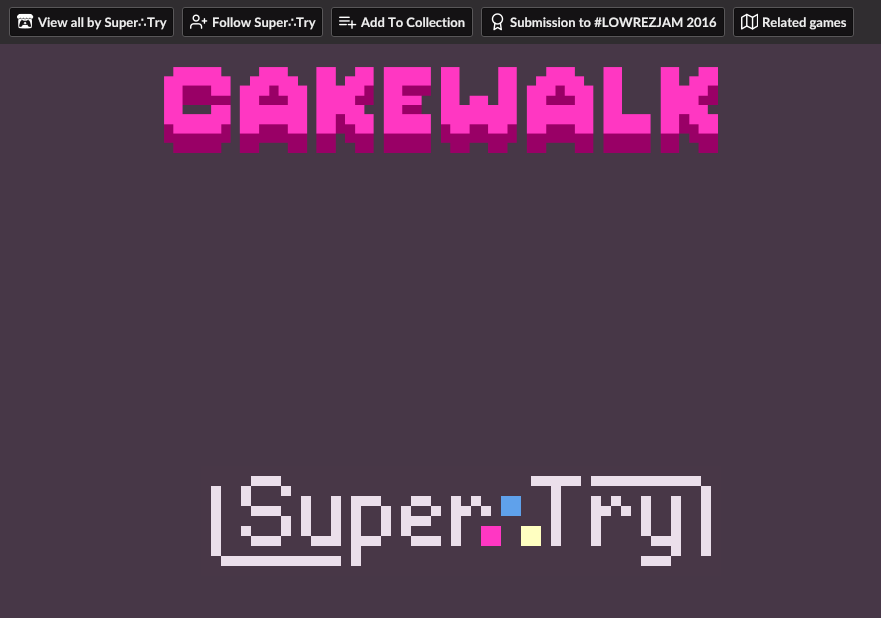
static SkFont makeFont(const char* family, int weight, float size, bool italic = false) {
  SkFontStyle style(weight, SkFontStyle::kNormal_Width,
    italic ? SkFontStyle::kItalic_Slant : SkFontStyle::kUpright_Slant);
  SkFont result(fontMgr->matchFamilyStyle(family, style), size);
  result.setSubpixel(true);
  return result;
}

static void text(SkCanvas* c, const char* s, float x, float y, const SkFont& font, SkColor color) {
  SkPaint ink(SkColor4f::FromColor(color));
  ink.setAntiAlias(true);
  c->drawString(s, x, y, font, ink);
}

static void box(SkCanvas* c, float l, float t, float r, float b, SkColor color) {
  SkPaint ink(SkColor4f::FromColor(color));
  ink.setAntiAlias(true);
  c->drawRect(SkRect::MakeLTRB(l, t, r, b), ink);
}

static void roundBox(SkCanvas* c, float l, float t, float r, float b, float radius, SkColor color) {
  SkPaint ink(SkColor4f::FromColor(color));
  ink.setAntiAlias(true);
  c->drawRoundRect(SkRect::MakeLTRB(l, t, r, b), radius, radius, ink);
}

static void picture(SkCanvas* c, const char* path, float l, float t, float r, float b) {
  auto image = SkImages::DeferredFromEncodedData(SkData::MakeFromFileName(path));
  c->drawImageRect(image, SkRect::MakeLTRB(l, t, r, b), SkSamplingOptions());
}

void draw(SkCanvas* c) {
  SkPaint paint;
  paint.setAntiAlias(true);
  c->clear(0xff473747);
  box(c, 0, 0, 881, 44, 0xff302d30);
  paint.setStyle(SkPaint::kStroke_Style);
  paint.setStrokeWidth(1);
  paint.setColor(0xff595759);
  c->drawRoundRect(SkRect::MakeLTRB(9.5f, 7.5f, 173.5f, 36.5f), 2.5f, 2.5f, paint);
  roundBox(c, 10, 8, 173, 36, 2, 0x99000000);
  paint.setColor(0x800a0a0a);
  c->drawRoundRect(SkRect::MakeLTRB(10.5f, 8.5f, 172.5f, 35.5f), 1.5f, 1.5f, paint);
  picture(c, "img_01.png", 17, 13, 34, 29);
  SkFont face1 = makeFont("Lato", 700, 13);
  text(c, "View all by Super", 38, 27, face1, 0xffeeeeee);
  SkFont face2 = makeFont("DejaVu Sans", 700, 13);
  text(c, "∴", 138, 27, face2, 0xffeeeeee);
  text(c, "Try", 147, 27, face1, 0xffeeeeee);
  paint.setColor(0xff595759);
  c->drawRoundRect(SkRect::MakeLTRB(182.5f, 7.5f, 322.5f, 36.5f), 2.5f, 2.5f, paint);
  roundBox(c, 183, 8, 322, 36, 2, 0x99000000);
  paint.setColor(0x800a0a0a);
  c->drawRoundRect(SkRect::MakeLTRB(183.5f, 8.5f, 321.5f, 35.5f), 1.5f, 1.5f, paint);
  picture(c, "img_02.png", 190, 14, 208, 29);
  text(c, "Follow Super", 212, 27, face1, 0xffeeeeee);
  text(c, "∴", 288, 27, face2, 0xffeeeeee);
  text(c, "Try", 296, 27, face1, 0xffeeeeee);
  paint.setColor(0xff595759);
  c->drawRoundRect(SkRect::MakeLTRB(331.5f, 7.5f, 472.5f, 36.5f), 2.5f, 2.5f, paint);
  roundBox(c, 332, 8, 472, 36, 2, 0x99000000);
  paint.setColor(0x800a0a0a);
  c->drawRoundRect(SkRect::MakeLTRB(332.5f, 8.5f, 471.5f, 35.5f), 1.5f, 1.5f, paint);
  picture(c, "img_03.png", 339, 16, 357, 29);
  text(c, "Add To Collection", 361, 27, face1, 0xffeeeeee);
  paint.setColor(0xff595759);
  c->drawRoundRect(SkRect::MakeLTRB(481.5f, 7.5f, 724.5f, 36.5f), 2.5f, 2.5f, paint);
  roundBox(c, 482, 8, 724, 36, 2, 0x99000000);
  paint.setColor(0x800a0a0a);
  c->drawRoundRect(SkRect::MakeLTRB(482.5f, 8.5f, 723.5f, 35.5f), 1.5f, 1.5f, paint);
  picture(c, "img_04.png", 491, 13, 504, 31);
  text(c, "Submission to #LOWREZJAM 2016", 510, 27, face1, 0xffeeeeee);
  paint.setColor(0xff595759);
  c->drawRoundRect(SkRect::MakeLTRB(733.5f, 7.5f, 853.5f, 36.5f), 2.5f, 2.5f, paint);
  roundBox(c, 734, 8, 853, 36, 2, 0x99000000);
  paint.setColor(0x800a0a0a);
  c->drawRoundRect(SkRect::MakeLTRB(734.5f, 8.5f, 852.5f, 35.5f), 1.5f, 1.5f, paint);
  picture(c, "img_05.png", 741, 13, 758, 30);
  text(c, "Related games", 762, 27, face1, 0xffeeeeee);
  picture(c, "img_06.png", 164, 67, 718, 153);
  picture(c, "img_07.png", 141, 196, 741, 618);
}
